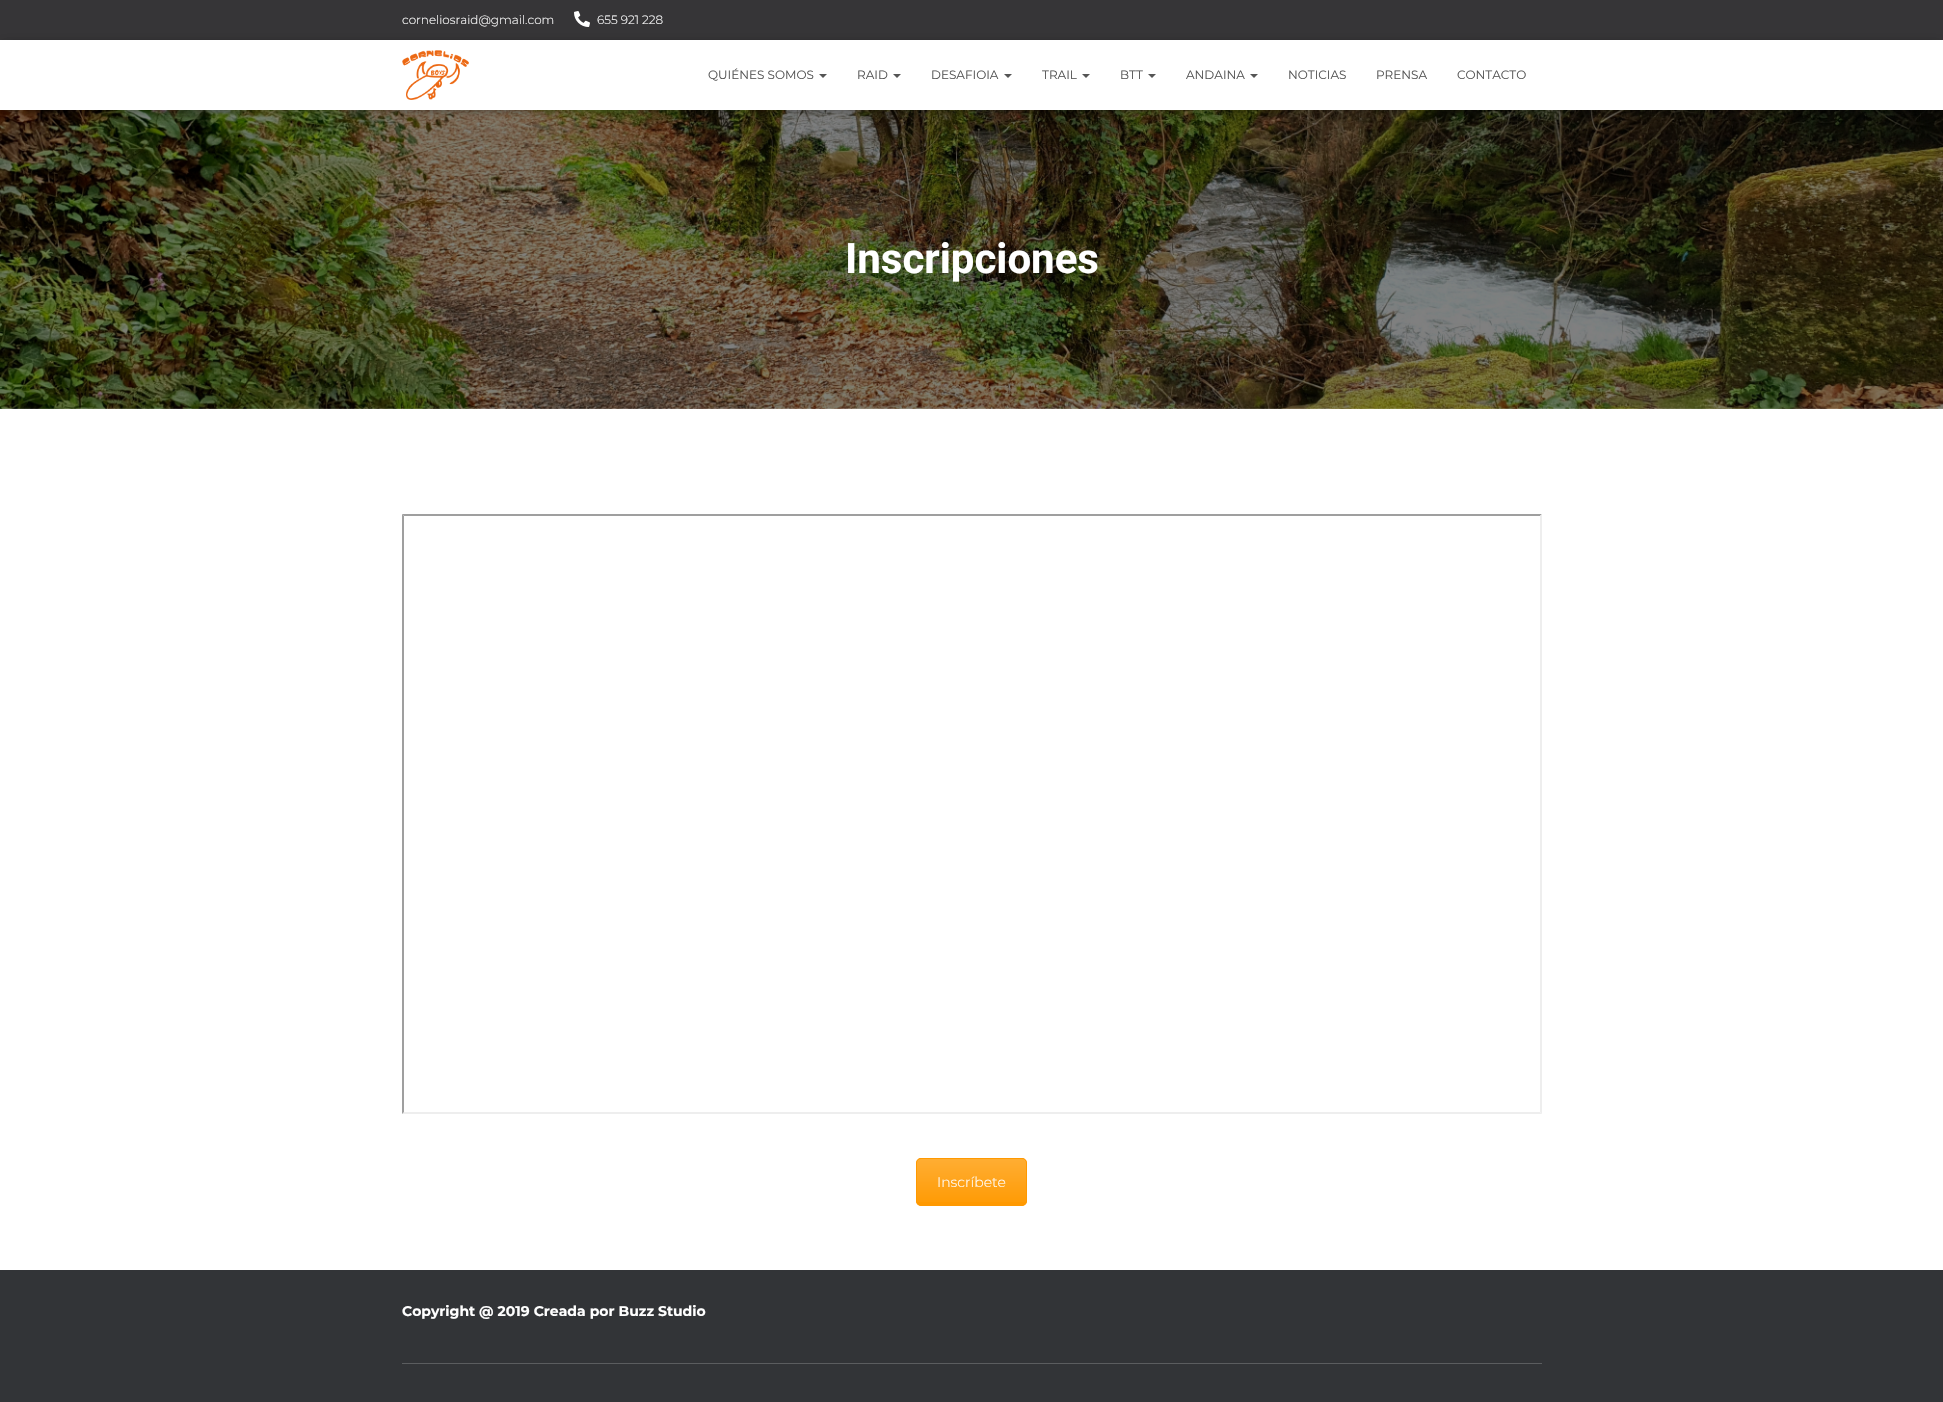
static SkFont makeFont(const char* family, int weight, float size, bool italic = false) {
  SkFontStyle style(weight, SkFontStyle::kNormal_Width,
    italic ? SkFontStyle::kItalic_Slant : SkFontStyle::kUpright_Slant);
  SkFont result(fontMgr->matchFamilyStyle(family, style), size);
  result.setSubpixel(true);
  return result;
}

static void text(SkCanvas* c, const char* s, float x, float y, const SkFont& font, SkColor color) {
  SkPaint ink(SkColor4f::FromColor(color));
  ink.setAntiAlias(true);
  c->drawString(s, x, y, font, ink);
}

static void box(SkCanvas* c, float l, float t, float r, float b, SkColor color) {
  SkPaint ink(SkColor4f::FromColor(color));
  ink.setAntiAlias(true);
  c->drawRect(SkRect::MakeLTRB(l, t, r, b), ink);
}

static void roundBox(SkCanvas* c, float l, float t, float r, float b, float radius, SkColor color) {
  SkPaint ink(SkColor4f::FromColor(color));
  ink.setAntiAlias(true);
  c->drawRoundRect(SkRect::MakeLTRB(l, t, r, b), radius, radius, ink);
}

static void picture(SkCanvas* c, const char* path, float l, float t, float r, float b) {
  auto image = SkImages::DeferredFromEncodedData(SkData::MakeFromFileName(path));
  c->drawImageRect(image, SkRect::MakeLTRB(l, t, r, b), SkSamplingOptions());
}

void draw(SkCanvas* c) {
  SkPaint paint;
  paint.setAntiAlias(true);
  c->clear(0xffffffff);
  box(c, 0, 0, 1943, 40, 0xff363537);
  SkFont face1 = makeFont("Montserrat", 300, 12);
  text(c, "corneliosraid@gmail.com", 402, 24, face1, 0xffffffff);
  picture(c, "img_01.png", 574, 11, 590, 27);
  text(c, "655 921 228", 597, 24, face1, 0xffffffff);
  picture(c, "img_03.png", 0, 110, 1943, 409);
  paint.setColor(0x1a000000);
  paint.setMaskFilter(SkMaskFilter::MakeBlur(kNormal_SkBlurStyle, 2.5f));
  c->drawRect(SkRect::MakeLTRB(2, 46, 1941, 112), paint);
  paint.setMaskFilter(nullptr);
  paint.setColor(0x1f000000);
  paint.setMaskFilter(SkMaskFilter::MakeBlur(kNormal_SkBlurStyle, 5));
  c->drawRect(SkRect::MakeLTRB(0, 41, 1943, 111), paint);
  paint.setMaskFilter(nullptr);
  paint.setColor(0x6b000000);
  paint.setMaskFilter(SkMaskFilter::MakeBlur(kNormal_SkBlurStyle, 5));
  c->drawRect(SkRect::MakeLTRB(6, 47, 1937, 105), paint);
  paint.setMaskFilter(nullptr);
  box(c, 0, 40, 1943, 110, 0xffffffff);
  picture(c, "img_02.png", 402, 50, 469, 100);
  SkFont face2 = makeFont("Montserrat", 400, 12);
  text(c, "QUIÉNES SOMOS", 708, 79, face2, 0xff555555);
  paint.setColor(0xff555555);
  c->drawPath(SkPathBuilder().moveTo(819, 74).lineTo(827, 74).lineTo(823, 78).close().detach(), paint);
  text(c, "RAID", 857, 79, face2, 0xff555555);
  c->drawPath(SkPathBuilder().moveTo(893, 74).lineTo(901, 74).lineTo(897, 78).close().detach(), paint);
  text(c, "DESAFIOIA", 931, 79, face2, 0xff555555);
  c->drawPath(SkPathBuilder().moveTo(1004, 74).lineTo(1012, 74).lineTo(1008, 78).close().detach(), paint);
  text(c, "TRAIL", 1042, 79, face2, 0xff555555);
  c->drawPath(SkPathBuilder().moveTo(1082, 74).lineTo(1090, 74).lineTo(1086, 78).close().detach(), paint);
  text(c, "BTT", 1120, 79, face2, 0xff555555);
  c->drawPath(SkPathBuilder().moveTo(1148, 74).lineTo(1156, 74).lineTo(1152, 78).close().detach(), paint);
  text(c, "ANDAINA", 1186, 79, face2, 0xff555555);
  c->drawPath(SkPathBuilder().moveTo(1250, 74).lineTo(1258, 74).lineTo(1254, 78).close().detach(), paint);
  text(c, "NOTICIAS", 1288, 79, face2, 0xff555555);
  text(c, "PRENSA", 1376, 79, face2, 0xff555555);
  text(c, "CONTACTO", 1457, 79, face2, 0xff555555);
  SkFont face3 = makeFont("Roboto", 700, 42);
  text(c, "Inscripciones", 845, 273, face3, 0xffffffff);
  paint.setColor(0xff9f9f9f);
  c->drawPath(SkPathBuilder().moveTo(402, 514).lineTo(1542, 514).lineTo(1540, 516).lineTo(404, 516).close().detach(), paint);
  paint.setColor(0xffeeeeee);
  c->drawPath(SkPathBuilder().moveTo(1542, 514).lineTo(1542, 1114).lineTo(1540, 1112).lineTo(1540, 516).close().detach(), paint);
  c->drawPath(SkPathBuilder().moveTo(1542, 1114).lineTo(402, 1114).lineTo(404, 1112).lineTo(1540, 1112).close().detach(), paint);
  paint.setColor(0xff9f9f9f);
  c->drawPath(SkPathBuilder().moveTo(402, 1114).lineTo(402, 514).lineTo(404, 516).lineTo(404, 1112).close().detach(), paint);
  roundBox(c, 916, 1158, 1027, 1206, 5, 0xffff9900);
  c->save();
  c->clipPath(SkPathBuilder().moveTo(921, 1158).lineTo(1022, 1158).cubicTo(1025, 1158, 1027, 1160, 1027, 1163).lineTo(1027, 1201).cubicTo(1027, 1204, 1025, 1206, 1022, 1206).lineTo(921, 1206).cubicTo(918, 1206, 916, 1204, 916, 1201).lineTo(916, 1163).cubicTo(916, 1160, 918, 1158, 921, 1158).close().detach(), true);
  {
    const SkColor colors[] = {0x33ffffff, 0x03ffffff};
    const float stops[] = {0, 1};
    const SkPoint ends[] = {{972, 1159}, {972, 1205}};
    paint.setShader(SkGradientShader::MakeLinear(ends, colors, stops, 2, SkTileMode::kClamp));
    paint.setAlpha(255);
  }
  c->drawRect(SkRect::MakeLTRB(916, 1159, 1027, 1202), paint);
  c->restore();
  paint.setStyle(SkPaint::kStroke_Style);
  paint.setStrokeWidth(1);
  paint.setShader(nullptr);
  paint.setColor(0xffff9900);
  c->drawRoundRect(SkRect::MakeLTRB(916.5f, 1158.5f, 1026.5f, 1205.5f), 4.5f, 4.5f, paint);
  SkFont face4 = makeFont("Montserrat", 300, 14);
  text(c, "Inscríbete", 937, 1187, face4, 0xffffffff);
  box(c, 0, 1270, 1943, 1402, 0xff323437);
  SkFont face5 = makeFont("Montserrat", 700, 14);
  text(c, "Copyright @ 2019 Creada por Buzz Studio", 402, 1316, face5, 0xffffffff);
  box(c, 402, 1363, 1542, 1364, 0xff5b5d5f);
}
